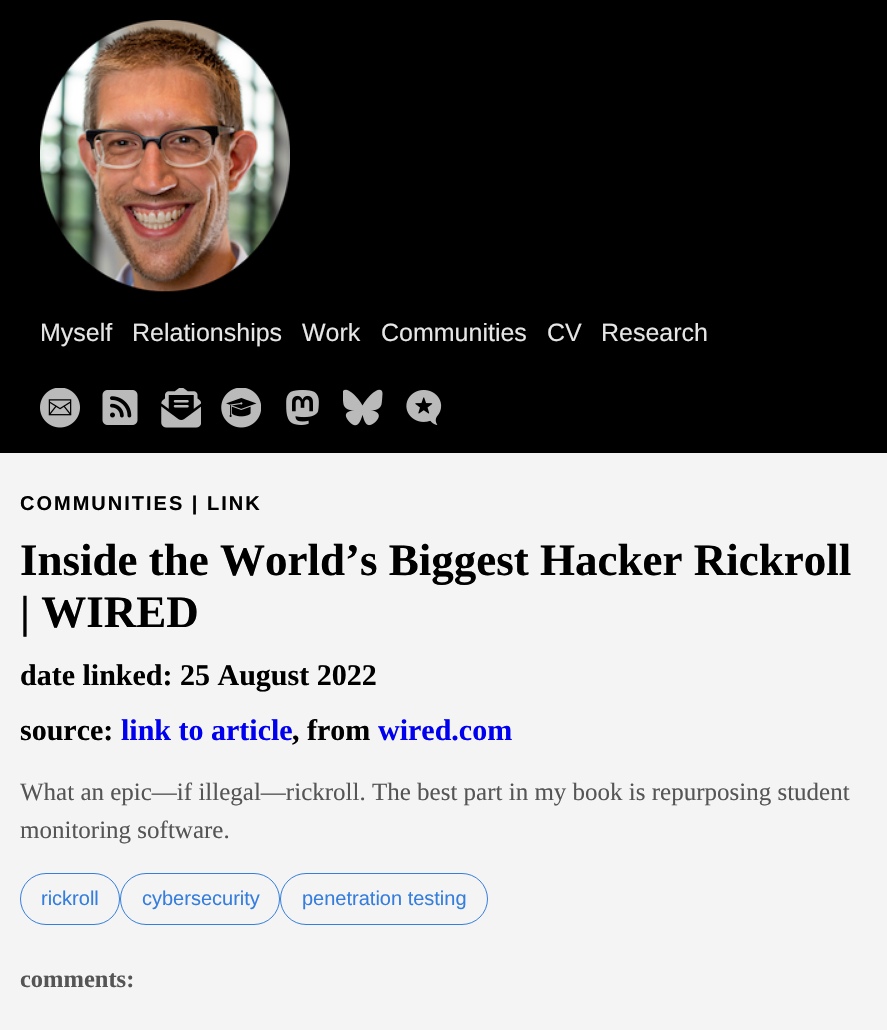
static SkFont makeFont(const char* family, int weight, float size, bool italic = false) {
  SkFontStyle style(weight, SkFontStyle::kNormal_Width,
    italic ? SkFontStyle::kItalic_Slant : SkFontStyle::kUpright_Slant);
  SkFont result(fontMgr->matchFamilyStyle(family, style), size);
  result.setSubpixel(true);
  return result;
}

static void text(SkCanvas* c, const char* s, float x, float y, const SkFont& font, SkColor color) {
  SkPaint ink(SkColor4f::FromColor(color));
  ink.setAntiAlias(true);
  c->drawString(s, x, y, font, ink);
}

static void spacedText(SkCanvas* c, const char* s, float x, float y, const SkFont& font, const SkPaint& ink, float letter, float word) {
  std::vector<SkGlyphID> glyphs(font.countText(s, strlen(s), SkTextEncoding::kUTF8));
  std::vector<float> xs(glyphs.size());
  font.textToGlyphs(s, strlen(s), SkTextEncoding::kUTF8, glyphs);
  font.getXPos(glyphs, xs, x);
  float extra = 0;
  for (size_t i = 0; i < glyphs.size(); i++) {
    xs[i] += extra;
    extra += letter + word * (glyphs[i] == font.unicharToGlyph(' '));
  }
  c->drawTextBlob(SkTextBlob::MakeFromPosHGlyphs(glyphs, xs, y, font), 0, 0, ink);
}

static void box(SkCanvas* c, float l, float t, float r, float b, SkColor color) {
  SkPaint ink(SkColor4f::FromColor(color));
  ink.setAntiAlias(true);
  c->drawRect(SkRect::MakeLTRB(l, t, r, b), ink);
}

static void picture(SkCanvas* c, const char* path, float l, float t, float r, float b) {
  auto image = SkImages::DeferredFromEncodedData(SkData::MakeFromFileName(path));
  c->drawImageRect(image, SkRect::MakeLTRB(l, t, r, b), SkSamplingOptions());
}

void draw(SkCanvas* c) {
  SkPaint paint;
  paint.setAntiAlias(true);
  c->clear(0xfff4f4f4);
  box(c, 0, 0, 887, 453, 0xff000000);
  picture(c, "img_01.png", 40, 20, 290, 292);
  SkFont face1 = makeFont("Liberation Sans", 400, 25);
  text(c, "Myself", 40, 341, face1, 0xffe6e6e6);
  text(c, "Relationships", 132, 341, face1, 0xffe6e6e6);
  text(c, "Work", 302, 341, face1, 0xffe6e6e6);
  text(c, "Communities", 381, 341, face1, 0xffe6e6e6);
  text(c, "CV", 547, 341, face1, 0xffe6e6e6);
  text(c, "Research", 601, 341, face1, 0xffe6e6e6);
  picture(c, "img_02.png", 40, 388, 80, 428);
  picture(c, "img_03.png", 102, 390, 138, 425);
  picture(c, "img_04.png", 161, 388, 201, 428);
  picture(c, "img_05.png", 221, 388, 261, 428);
  picture(c, "img_06.png", 286, 390, 319, 425);
  picture(c, "img_07.png", 343, 389, 383, 426);
  picture(c, "img_08.png", 406, 390, 442, 425);
  SkFont face2 = makeFont("Liberation Sans", 700, 20);
  paint.setColor(0xff000000);
  spacedText(c, "COMMUNITIES | LINK", 20, 510, face2, paint, 2, 0);
  SkFont face3 = makeFont("Liberation Serif", 700, 45);
  text(c, "Inside the World’s Biggest Hacker Rickroll", 20, 575, face3, 0xff000000);
  text(c, "| WIRED", 20, 627, face3, 0xff000000);
  SkFont face4 = makeFont("Liberation Serif", 700, 30);
  text(c, "date linked: 25 August 2022", 20, 685, face4, 0xff000000);
  text(c, "source:", 20, 740, face4, 0xff000000);
  text(c, "link to article", 121, 740, face4, 0xff0000ee);
  text(c, ", from", 292, 740, face4, 0xff000000);
  text(c, "wired.com", 378, 740, face4, 0xff0000ee);
  SkFont face5 = makeFont("Liberation Serif", 400, 25);
  text(c, "What an epic—if illegal—rickroll. The best part in my book is repurposing student", 20, 800, face5, 0xff555555);
  text(c, "monitoring software.", 20, 838, face5, 0xff555555);
  paint.setStyle(SkPaint::kStroke_Style);
  paint.setStrokeWidth(1);
  paint.setColor(0xff357edd);
  c->drawRoundRect(SkRect::MakeLTRB(20.5f, 873.5f, 119.5f, 924.5f), 25.5f, 25.5f, paint);
  SkFont face6 = makeFont("Liberation Sans", 400, 20);
  text(c, "rickroll", 41, 905, face6, 0xff357edd);
  c->drawRoundRect(SkRect::MakeLTRB(120.5f, 873.5f, 279.5f, 924.5f), 25.5f, 25.5f, paint);
  text(c, "cybersecurity", 142, 905, face6, 0xff357edd);
  c->drawRoundRect(SkRect::MakeLTRB(280.5f, 873.5f, 487.5f, 924.5f), 25.5f, 25.5f, paint);
  text(c, "penetration testing", 302, 905, face6, 0xff357edd);
  SkFont face7 = makeFont("Liberation Serif", 700, 24.5f);
  text(c, "comments:", 20, 987, face7, 0xff555555);
}
